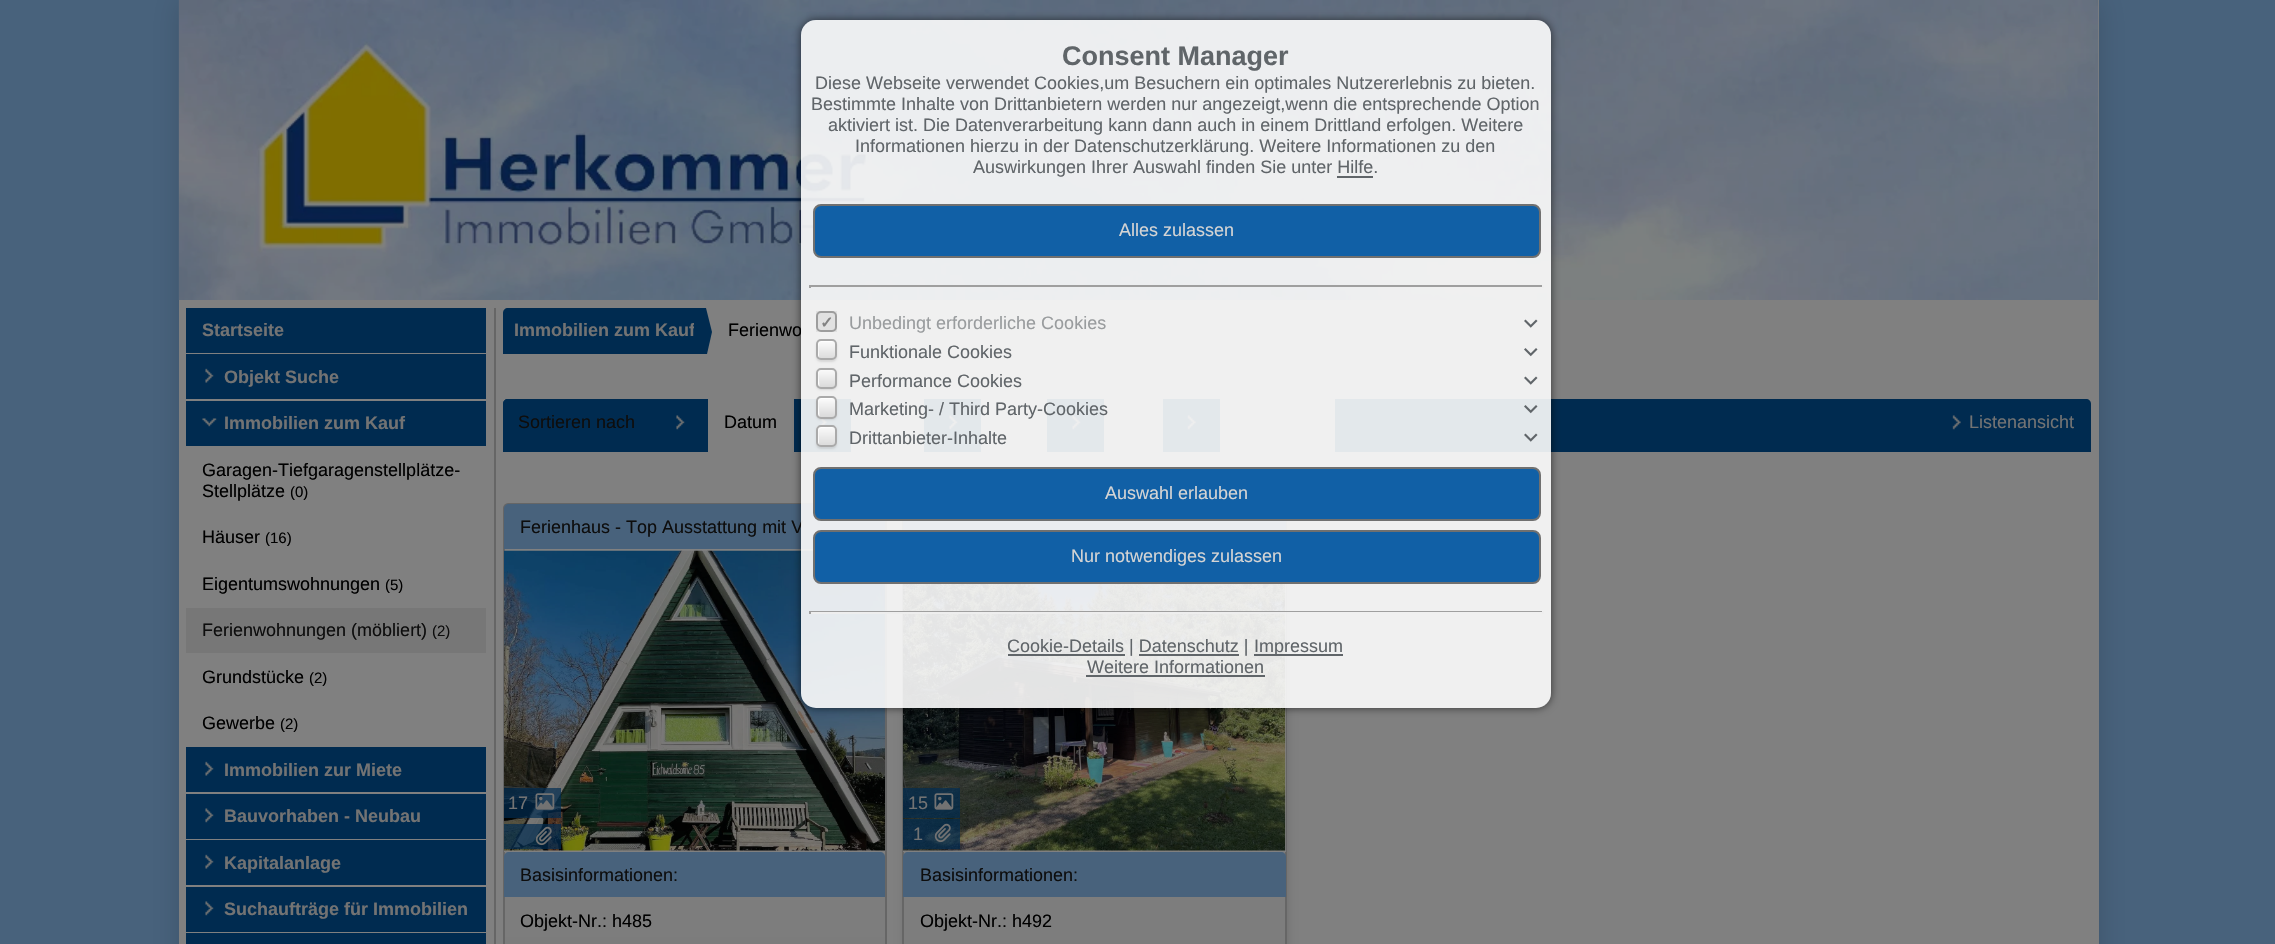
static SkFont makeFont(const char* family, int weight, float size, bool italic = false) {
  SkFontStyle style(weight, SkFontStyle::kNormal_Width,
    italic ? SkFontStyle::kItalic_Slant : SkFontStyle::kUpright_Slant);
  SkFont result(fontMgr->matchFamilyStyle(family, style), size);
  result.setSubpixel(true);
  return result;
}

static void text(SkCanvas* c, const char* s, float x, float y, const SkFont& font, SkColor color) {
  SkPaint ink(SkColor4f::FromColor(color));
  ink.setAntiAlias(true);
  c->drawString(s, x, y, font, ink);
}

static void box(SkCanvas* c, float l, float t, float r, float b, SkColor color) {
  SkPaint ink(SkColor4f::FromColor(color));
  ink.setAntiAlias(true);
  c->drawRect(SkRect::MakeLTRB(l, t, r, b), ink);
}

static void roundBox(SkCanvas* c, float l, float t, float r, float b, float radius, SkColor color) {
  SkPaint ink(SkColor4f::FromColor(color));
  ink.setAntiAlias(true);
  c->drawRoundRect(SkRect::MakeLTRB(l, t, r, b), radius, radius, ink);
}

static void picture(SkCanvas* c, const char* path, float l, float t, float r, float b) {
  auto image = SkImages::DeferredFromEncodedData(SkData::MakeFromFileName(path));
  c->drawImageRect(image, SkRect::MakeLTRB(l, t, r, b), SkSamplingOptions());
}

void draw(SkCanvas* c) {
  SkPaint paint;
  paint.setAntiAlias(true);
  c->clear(0xff48627c);
  paint.setColor(0x24000000);
  paint.setMaskFilter(SkMaskFilter::MakeBlur(kNormal_SkBlurStyle, 13.5f));
  c->drawRect(SkRect::MakeLTRB(179, 0, 2099, 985), paint);
  paint.setMaskFilter(nullptr);
  box(c, 179, 0, 2099, 944, 0xff808080);
  picture(c, "img_05.png", 178, 0, 2099, 300);
  paint.setColor(0xff002b50);
  c->drawPath(SkPathBuilder().moveTo(508, 399).lineTo(2086, 399).cubicTo(2089, 399, 2091, 401, 2091, 404).lineTo(2091, 452).lineTo(503, 452).lineTo(503, 404).cubicTo(503, 401, 505, 399, 508, 399).close().detach(), paint);
  box(c, 708, 399, 794, 452, 0xff808080);
  picture(c, "img_09.png", 818, 418, 827, 426);
  box(c, 851, 399, 924, 452, 0xff808080);
  picture(c, "img_08.png", 949, 415, 958, 430);
  box(c, 981, 399, 1047, 452, 0xff808080);
  picture(c, "img_10.png", 1072, 415, 1081, 430);
  box(c, 1104, 399, 1163, 452, 0xff808080);
  picture(c, "img_11.png", 1187, 415, 1196, 430);
  box(c, 1220, 399, 1335, 452, 0xff808080);
  {
    const SkColor colors[] = {0x006e6e6e, 0x406e6e6e};
    const float stops[] = {0, 1};
    const SkPoint ends[] = {{695, 504}, {695, 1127}};
    paint.setShader(SkGradientShader::MakeLinear(ends, colors, stops, 2, SkTileMode::kClamp));
    paint.setAlpha(255);
  }
  c->drawRect(SkRect::MakeLTRB(505, 852, 885, 944), paint);
  paint.setStyle(SkPaint::kStroke_Style);
  paint.setStrokeWidth(2);
  paint.setShader(nullptr);
  paint.setColor(0xff666666);
  c->drawPath(SkPathBuilder().moveTo(508, 504).lineTo(882, 504).cubicTo(884, 504, 886, 506, 886, 508).lineTo(886, 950).lineTo(504, 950).lineTo(504, 508).cubicTo(504, 506, 506, 504, 508, 504).close().detach(), paint);
  paint.setStyle(SkPaint::kFill_Style);
  paint.setColor(0xff48627c);
  c->drawPath(SkPathBuilder().moveTo(509, 504).lineTo(880, 504).cubicTo(883, 504, 885, 506, 885, 509).lineTo(885, 549).lineTo(504, 549).lineTo(504, 509).cubicTo(504, 506, 506, 504, 509, 504).close().detach(), paint);
  box(c, 504, 850, 505, 852, 0xff808080);
  picture(c, "img_12.png", 504, 550, 885, 851);
  paint.setColor(0x1a000000);
  paint.setMaskFilter(SkMaskFilter::MakeBlur(kNormal_SkBlurStyle, 4));
  c->drawRoundRect(SkRect::MakeLTRB(903, 504, 1289, 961), 5, 5, paint);
  paint.setMaskFilter(nullptr);
  {
    const SkColor colors[] = {0xff808080, 0xff7b7b7b};
    const float stops[] = {0, 1};
    const SkPoint ends[] = {{1094, 504}, {1094, 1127}};
    paint.setShader(SkGradientShader::MakeLinear(ends, colors, stops, 2, SkTileMode::kClamp));
    paint.setAlpha(255);
  }
  c->drawRect(SkRect::MakeLTRB(904, 852, 1285, 944), paint);
  paint.setStyle(SkPaint::kStroke_Style);
  paint.setShader(nullptr);
  paint.setColor(0xff666666);
  c->drawRect(SkRect::MakeLTRB(903, 504, 1286, 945), paint);
  box(c, 903, 521, 1286, 530, 0xff48627c);
  box(c, 903, 584, 1286, 852, 0xff808080);
  picture(c, "img_15.png", 903, 584, 1286, 851);
  c->save();
  c->clipPath(SkPathBuilder(SkPathFillType::kEvenOdd).moveTo(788, 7).lineTo(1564, 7).lineTo(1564, 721).lineTo(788, 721).close().moveTo(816, 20).lineTo(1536, 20).cubicTo(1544.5f, 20, 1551, 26.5f, 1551, 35).lineTo(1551, 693).cubicTo(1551, 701.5f, 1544.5f, 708, 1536, 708).lineTo(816, 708).cubicTo(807.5f, 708, 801, 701.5f, 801, 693).lineTo(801, 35).cubicTo(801, 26.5f, 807.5f, 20, 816, 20).close().detach(), true);
  paint.setStyle(SkPaint::kFill_Style);
  paint.setColor(0x99000000);
  paint.setMaskFilter(SkMaskFilter::MakeBlur(kNormal_SkBlurStyle, 4));
  c->drawRoundRect(SkRect::MakeLTRB(801, 20, 1551, 708), 15, 15, paint);
  paint.setMaskFilter(nullptr);
  c->restore();
  SkFont face1 = makeFont("Liberation Sans", 400, 18);
  text(c, "Ferienwo", 728, 336, face1, 0xff000000);
  text(c, "Ferienhaus - Top Ausstattung mit V", 520, 533, face1, 0xff0d0d0d);
  roundBox(c, 801, 20, 1551, 708, 15, 0xe6fcfcfc);
  SkFont face2 = makeFont("Liberation Sans", 700, 27);
  text(c, "Consent Manager", 1062, 65, face2, 0xff606569);
  text(c, "Diese Webseite verwendet Cookies,um Besuchern ein optimales Nutzererlebnis zu bieten.", 815, 89, face1, 0xff606569);
  text(c, "Bestimmte Inhalte von Drittanbietern werden nur angezeigt,wenn die entsprechende Option", 811, 110, face1, 0xff606569);
  text(c, "aktiviert ist. Die Datenverarbeitung kann dann auch in einem Drittland erfolgen. Weitere", 828, 131, face1, 0xff606569);
  text(c, "Informationen hierzu in der Datenschutzerklärung. Weitere Informationen zu den", 855, 152, face1, 0xff606569);
  text(c, "Auswirkungen Ihrer Auswahl finden Sie unter Hilfe.", 973, 173, face1, 0xff606569);
  box(c, 1337, 176, 1373, 178, 0xff606569);
  paint.setColor(0xff1160a6);
  c->drawRoundRect(SkRect::MakeLTRB(814, 205, 1540, 257), 7, 7, paint);
  paint.setStyle(SkPaint::kStroke_Style);
  paint.setColor(0xff707070);
  c->drawRoundRect(SkRect::MakeLTRB(814, 205, 1540, 257), 7, 7, paint);
  text(c, "Alles zulassen", 1119, 236, face1, 0xffd4d4d4);
  box(c, 809, 285, 1544, 287, 0xff9f9f9f);
  box(c, 1542, 285, 1544, 288, 0xffeeeeee);
  box(c, 809, 285, 811, 288, 0xff9f9f9f);
  box(c, 816, 311, 837, 332, 0x0f000000);
  paint.setColor(0x4d000000);
  c->drawRoundRect(SkRect::MakeLTRB(817, 312, 836, 331), 4, 4, paint);
  SkFont face3 = makeFont("DejaVu Sans", 700, 16);
  text(c, "✓", 820, 328, face3, 0xff828282);
  text(c, "Unbedingt erforderliche Cookies", 849, 329, face1, 0xff999c9e);
  picture(c, "img_01.png", 1524, 319, 1538, 328);
  paint.setStyle(SkPaint::kFill_Style);
  paint.setColor(0x1a000000);
  paint.setMaskFilter(SkMaskFilter::MakeBlur(kNormal_SkBlurStyle, 1));
  c->drawRoundRect(SkRect::MakeLTRB(816, 341, 837, 362), 5, 5, paint);
  paint.setMaskFilter(nullptr);
  c->save();
  c->clipPath(SkPathBuilder().moveTo(821, 339).lineTo(832, 339).cubicTo(835, 339, 837, 341, 837, 344).lineTo(837, 355).cubicTo(837, 358, 835, 360, 832, 360).lineTo(821, 360).cubicTo(818, 360, 816, 358, 816, 355).lineTo(816, 344).cubicTo(816, 341, 818, 339, 821, 339).close().detach(), true);
  {
    const SkColor colors[] = {0xfffcfcfc, 0xffdadada};
    const float stops[] = {0, 1};
    const SkPoint ends[] = {{827, 341}, {827, 359}};
    paint.setShader(SkGradientShader::MakeLinear(ends, colors, stops, 2, SkTileMode::kClamp));
    paint.setAlpha(255);
  }
  c->drawRect(SkRect::MakeLTRB(816, 341, 837, 359), paint);
  c->restore();
  paint.setShader(nullptr);
  paint.setColor(0xffffffff);
  c->drawPath(SkPathBuilder().moveTo(822, 342).cubicTo(825, 342, 833, 341.5f, 835.5f, 342.5f).cubicTo(835, 341.5f, 834, 341, 833, 341).lineTo(821, 341).cubicTo(819.5f, 341, 818, 342.5f, 818, 344).lineTo(818, 356).cubicTo(818, 357, 818.5f, 358, 819.5f, 358.5f).cubicTo(819, 357.5f, 818.5f, 348, 818.5f, 346.5f).lineTo(819, 344).cubicTo(819.5f, 342.5f, 820.5f, 342, 822, 342).close().detach(), paint);
  paint.setStyle(SkPaint::kStroke_Style);
  paint.setColor(0xffaaaaaa);
  c->drawRoundRect(SkRect::MakeLTRB(817, 340, 836, 359), 4, 4, paint);
  text(c, "Funktionale Cookies", 849, 358, face1, 0xff606569);
  picture(c, "img_02.png", 1524, 348, 1538, 357);
  paint.setStyle(SkPaint::kFill_Style);
  paint.setColor(0x1a000000);
  paint.setMaskFilter(SkMaskFilter::MakeBlur(kNormal_SkBlurStyle, 1));
  c->drawRoundRect(SkRect::MakeLTRB(816, 369, 837, 390), 5, 5, paint);
  paint.setMaskFilter(nullptr);
  c->save();
  c->clipPath(SkPathBuilder().moveTo(821, 368).lineTo(832, 368).cubicTo(835, 368, 837, 370, 837, 373).lineTo(837, 384).cubicTo(837, 387, 835, 389, 832, 389).lineTo(821, 389).cubicTo(818, 389, 816, 387, 816, 384).lineTo(816, 373).cubicTo(816, 370, 818, 368, 821, 368).close().detach(), true);
  {
    const SkColor colors[] = {0xfffcfcfc, 0xffdadada};
    const float stops[] = {0, 1};
    const SkPoint ends[] = {{827, 369}, {827, 387}};
    paint.setShader(SkGradientShader::MakeLinear(ends, colors, stops, 2, SkTileMode::kClamp));
    paint.setAlpha(255);
  }
  c->drawRect(SkRect::MakeLTRB(816, 369, 837, 387), paint);
  c->restore();
  paint.setShader(nullptr);
  paint.setColor(0xffffffff);
  c->drawPath(SkPathBuilder().moveTo(822, 370).cubicTo(825, 370, 833, 369.5f, 835.5f, 370.5f).cubicTo(835, 369.5f, 834, 369, 833, 369).lineTo(821, 369).cubicTo(819.5f, 369, 818, 370.5f, 818, 372).lineTo(818, 384).cubicTo(818, 385, 818.5f, 386, 819.5f, 386.5f).lineTo(818.5f, 375).lineTo(819, 372).cubicTo(819.5f, 371, 820.5f, 370, 822, 370).close().detach(), paint);
  paint.setStyle(SkPaint::kStroke_Style);
  paint.setColor(0xffaaaaaa);
  c->drawRoundRect(SkRect::MakeLTRB(817, 369, 836, 388), 4, 4, paint);
  text(c, "Performance Cookies", 849, 387, face1, 0xff606569);
  picture(c, "img_01.png", 1524, 376, 1538, 385);
  paint.setStyle(SkPaint::kFill_Style);
  paint.setColor(0x1a000000);
  paint.setMaskFilter(SkMaskFilter::MakeBlur(kNormal_SkBlurStyle, 1));
  c->drawRoundRect(SkRect::MakeLTRB(816, 398, 837, 420), 5, 5, paint);
  paint.setMaskFilter(nullptr);
  c->save();
  c->clipPath(SkPathBuilder().moveTo(821, 396).lineTo(832, 396).cubicTo(835, 396, 837, 398, 837, 401).lineTo(837, 414).cubicTo(837, 417, 835, 419, 832, 419).lineTo(821, 419).cubicTo(818, 419, 816, 417, 816, 414).lineTo(816, 401).cubicTo(816, 398, 818, 396, 821, 396).close().detach(), true);
  {
    const SkColor colors[] = {0xfffcfcfc, 0xffdadada};
    const float stops[] = {0, 1};
    const SkPoint ends[] = {{827, 398}, {827, 417}};
    paint.setShader(SkGradientShader::MakeLinear(ends, colors, stops, 2, SkTileMode::kClamp));
    paint.setAlpha(255);
  }
  c->drawRect(SkRect::MakeLTRB(816, 398, 837, 417), paint);
  c->restore();
  paint.setShader(nullptr);
  paint.setColor(0xffffffff);
  c->drawPath(SkPathBuilder().moveTo(822, 399).cubicTo(825, 399, 833.5f, 398.5f, 835.5f, 399.5f).cubicTo(835, 398.5f, 834, 398, 833, 398).lineTo(821, 398).cubicTo(819.5f, 398, 818, 399.5f, 818, 401).lineTo(818, 414).cubicTo(818, 415, 818.5f, 416, 819.5f, 416.5f).lineTo(818.5f, 403).lineTo(819, 400.5f).cubicTo(819.5f, 399.5f, 821, 399, 822, 399).close().detach(), paint);
  paint.setStyle(SkPaint::kStroke_Style);
  paint.setColor(0xffaaaaaa);
  c->drawRoundRect(SkRect::MakeLTRB(817, 397, 836, 418), 4, 4, paint);
  text(c, "Marketing- / Third Party-Cookies", 849, 415, face1, 0xff606569);
  picture(c, "img_03.png", 1524, 405, 1538, 414);
  paint.setStyle(SkPaint::kFill_Style);
  paint.setColor(0x1a000000);
  paint.setMaskFilter(SkMaskFilter::MakeBlur(kNormal_SkBlurStyle, 1));
  c->drawRoundRect(SkRect::MakeLTRB(816, 426, 837, 449), 5, 5, paint);
  paint.setMaskFilter(nullptr);
  c->save();
  c->clipPath(SkPathBuilder().moveTo(821, 425).lineTo(832, 425).cubicTo(835, 425, 837, 427, 837, 430).lineTo(837, 442).cubicTo(837, 445, 835, 447, 832, 447).lineTo(821, 447).cubicTo(818, 447, 816, 445, 816, 442).lineTo(816, 430).cubicTo(816, 427, 818, 425, 821, 425).close().detach(), true);
  {
    const SkColor colors[] = {0xfffcfcfc, 0xffdadada};
    const float stops[] = {0, 1};
    const SkPoint ends[] = {{827, 426}, {827, 446}};
    paint.setShader(SkGradientShader::MakeLinear(ends, colors, stops, 2, SkTileMode::kClamp));
    paint.setAlpha(255);
  }
  c->drawRect(SkRect::MakeLTRB(816, 426, 837, 446), paint);
  c->restore();
  paint.setShader(nullptr);
  paint.setColor(0xffffffff);
  c->drawPath(SkPathBuilder().moveTo(822, 428).cubicTo(825, 428, 833.5f, 427, 836, 429).cubicTo(836, 427.5f, 834.5f, 426, 833, 426).lineTo(821, 426).cubicTo(819.5f, 426, 818, 427.5f, 818, 429).lineTo(818, 443).cubicTo(818, 444, 818.5f, 445, 819.5f, 445.5f).lineTo(819, 443.5f).lineTo(818.5f, 432).lineTo(819, 429.5f).cubicTo(819.5f, 428.5f, 821, 428, 822, 428).close().detach(), paint);
  paint.setStyle(SkPaint::kStroke_Style);
  paint.setColor(0xffaaaaaa);
  c->drawRoundRect(SkRect::MakeLTRB(817, 426, 836, 446), 4, 4, paint);
  text(c, "Drittanbieter-Inhalte", 849, 444, face1, 0xff606569);
  picture(c, "img_04.png", 1524, 433, 1538, 442);
  paint.setStyle(SkPaint::kFill_Style);
  paint.setColor(0xff1160a6);
  c->drawRoundRect(SkRect::MakeLTRB(814, 468, 1540, 520), 7, 7, paint);
  paint.setStyle(SkPaint::kStroke_Style);
  paint.setColor(0xff707070);
  c->drawRoundRect(SkRect::MakeLTRB(814, 468, 1540, 520), 7, 7, paint);
  text(c, "Auswahl erlauben", 1105, 499, face1, 0xffd4d4d4);
  paint.setStyle(SkPaint::kFill_Style);
  paint.setColor(0xff1160a6);
  c->drawRoundRect(SkRect::MakeLTRB(814, 531, 1540, 583), 7, 7, paint);
  paint.setStyle(SkPaint::kStroke_Style);
  paint.setColor(0xff707070);
  c->drawRoundRect(SkRect::MakeLTRB(814, 531, 1540, 583), 7, 7, paint);
  text(c, "Nur notwendiges zulassen", 1071, 562, face1, 0xffd4d4d4);
  box(c, 809, 611, 1544, 612, 0xff9f9f9f);
  box(c, 1542, 611, 1544, 614, 0xffeeeeee);
  box(c, 809, 612, 1285, 614, 0xffeeeeee);
  box(c, 809, 611, 811, 614, 0xff9f9f9f);
  box(c, 1008, 654, 1125, 656, 0xff606569);
  text(c, "Cookie-Details | Datenschutz |", 1007, 652, face1, 0xff606569);
  box(c, 1254, 654, 1343, 656, 0xff606569);
  text(c, "Impressum", 1254, 652, face1, 0xff606569);
  box(c, 1139, 654, 1239, 656, 0xff606569);
  text(c, "Weitere Informationen", 1087, 673, face1, 0xff606569);
  box(c, 1086, 675, 1265, 677, 0xff606569);
  box(c, 494, 308, 496, 944, 0xff666666);
  box(c, 186, 308, 486, 353, 0xff002b50);
  SkFont face4 = makeFont("Liberation Sans", 700, 18);
  text(c, "Startseite", 202, 336, face4, 0xff737373);
  box(c, 186, 354, 486, 399, 0xff002b50);
  picture(c, "img_06.png", 205, 368, 214, 383);
  text(c, "Objekt Suche", 224, 383, face4, 0xff737373);
  box(c, 186, 401, 486, 446, 0xff002b50);
  picture(c, "img_07.png", 202, 418, 217, 427);
  text(c, "Immobilien zum Kauf", 224, 429, face4, 0xff737373);
  text(c, "Garagen-Tiefgaragenstellplätze-", 202, 476, face1, 0xff000000);
  text(c, "Stellplätze", 202, 497, face1, 0xff000000);
  SkFont face5 = makeFont("Liberation Sans", 400, 15);
  text(c, "(0)", 290, 497, face5, 0xff000000);
  text(c, "Häuser", 202, 543, face1, 0xff000000);
  text(c, "(16)", 265, 543, face5, 0xff000000);
  text(c, "Eigentumswohnungen", 202, 590, face1, 0xff000000);
  text(c, "(5)", 385, 590, face5, 0xff000000);
  box(c, 186, 608, 486, 653, 0xff777777);
  text(c, "Ferienwohnungen (möbliert)", 202, 636, face1, 0xff0d0d0d);
  text(c, "(2)", 432, 636, face5, 0xff0d0d0d);
  text(c, "Grundstücke", 202, 683, face1, 0xff000000);
  text(c, "(2)", 309, 683, face5, 0xff000000);
  text(c, "Gewerbe", 202, 729, face1, 0xff000000);
  text(c, "(2)", 280, 729, face5, 0xff000000);
  box(c, 186, 747, 486, 792, 0xff002b50);
  picture(c, "img_06.png", 205, 761, 214, 776);
  text(c, "Immobilien zur Miete", 224, 776, face4, 0xff737373);
  box(c, 186, 794, 486, 839, 0xff002b50);
  picture(c, "img_08.png", 205, 808, 214, 823);
  text(c, "Bauvorhaben - Neubau", 224, 822, face4, 0xff737373);
  box(c, 186, 840, 486, 885, 0xff002b50);
  picture(c, "img_06.png", 205, 854, 214, 869);
  text(c, "Kapitalanlage", 224, 869, face4, 0xff737373);
  box(c, 186, 887, 486, 932, 0xff002b50);
  picture(c, "img_08.png", 205, 901, 214, 916);
  text(c, "Suchaufträge für Immobilien", 224, 915, face4, 0xff737373);
  box(c, 186, 933, 486, 944, 0xff002b50);
  paint.setStyle(SkPaint::kFill_Style);
  paint.setColor(0xff002b50);
  c->drawPath(SkPathBuilder().moveTo(508, 308).lineTo(695, 308).lineTo(695, 354).lineTo(503, 354).lineTo(503, 313).cubicTo(503, 310, 505, 308, 508, 308).close().detach(), paint);
  text(c, "Immobilien zum Kauf", 514, 336, face4, 0xff737373);
  c->drawPath(SkPathBuilder().moveTo(706, 308).lineTo(712, 332).lineTo(707, 354).lineTo(694, 354).lineTo(694, 308).close().detach(), paint);
  c->drawPath(SkPathBuilder().moveTo(508, 399).lineTo(648, 399).cubicTo(651, 399, 653, 401, 653, 404).lineTo(653, 452).lineTo(503, 452).lineTo(503, 404).cubicTo(503, 401, 505, 399, 508, 399).close().detach(), paint);
  text(c, "Sortieren nach", 518, 428, face1, 0xff0d0d0d);
  picture(c, "img_08.png", 676, 415, 685, 430);
  text(c, "Datum", 724, 428, face1, 0xff000000);
  picture(c, "img_11.png", 1952, 415, 1961, 430);
  text(c, "Listenansicht", 1969, 428, face1, 0xff737373);
  box(c, 504, 788, 561, 818, 0xb3002b50);
  text(c, "17", 508, 809, face1, 0xff737373);
  picture(c, "img_13.png", 535, 793, 555, 810);
  box(c, 504, 824, 561, 849, 0xb3002b50);
  picture(c, "img_14.png", 535, 826, 552, 846);
  paint.setColor(0xff48627c);
  c->drawPath(SkPathBuilder().moveTo(509, 852).lineTo(880, 852).cubicTo(883, 852, 885, 854, 885, 857).lineTo(885, 897).lineTo(504, 897).lineTo(504, 857).cubicTo(504, 854, 506, 852, 509, 852).close().detach(), paint);
  text(c, "Basisinformationen:", 520, 881, face1, 0xff0d0d0d);
  text(c, "Objekt-Nr.: h485", 520, 927, face1, 0xff000000);
  box(c, 903, 788, 960, 818, 0xb3002b50);
  text(c, "15", 908, 809, face1, 0xff737373);
  picture(c, "img_16.png", 934, 793, 954, 810);
  box(c, 903, 819, 960, 849, 0xb3002b50);
  text(c, "1", 913, 840, face1, 0xff737373);
  picture(c, "img_17.png", 934, 823, 951, 842);
  c->drawPath(SkPathBuilder().moveTo(908, 852).lineTo(1281, 852).cubicTo(1284, 852, 1286, 854, 1286, 857).lineTo(1286, 897).lineTo(903, 897).lineTo(903, 857).cubicTo(903, 854, 905, 852, 908, 852).close().detach(), paint);
  text(c, "Basisinformationen:", 920, 881, face1, 0xff0d0d0d);
  text(c, "Objekt-Nr.: h492", 920, 927, face1, 0xff000000);
}
